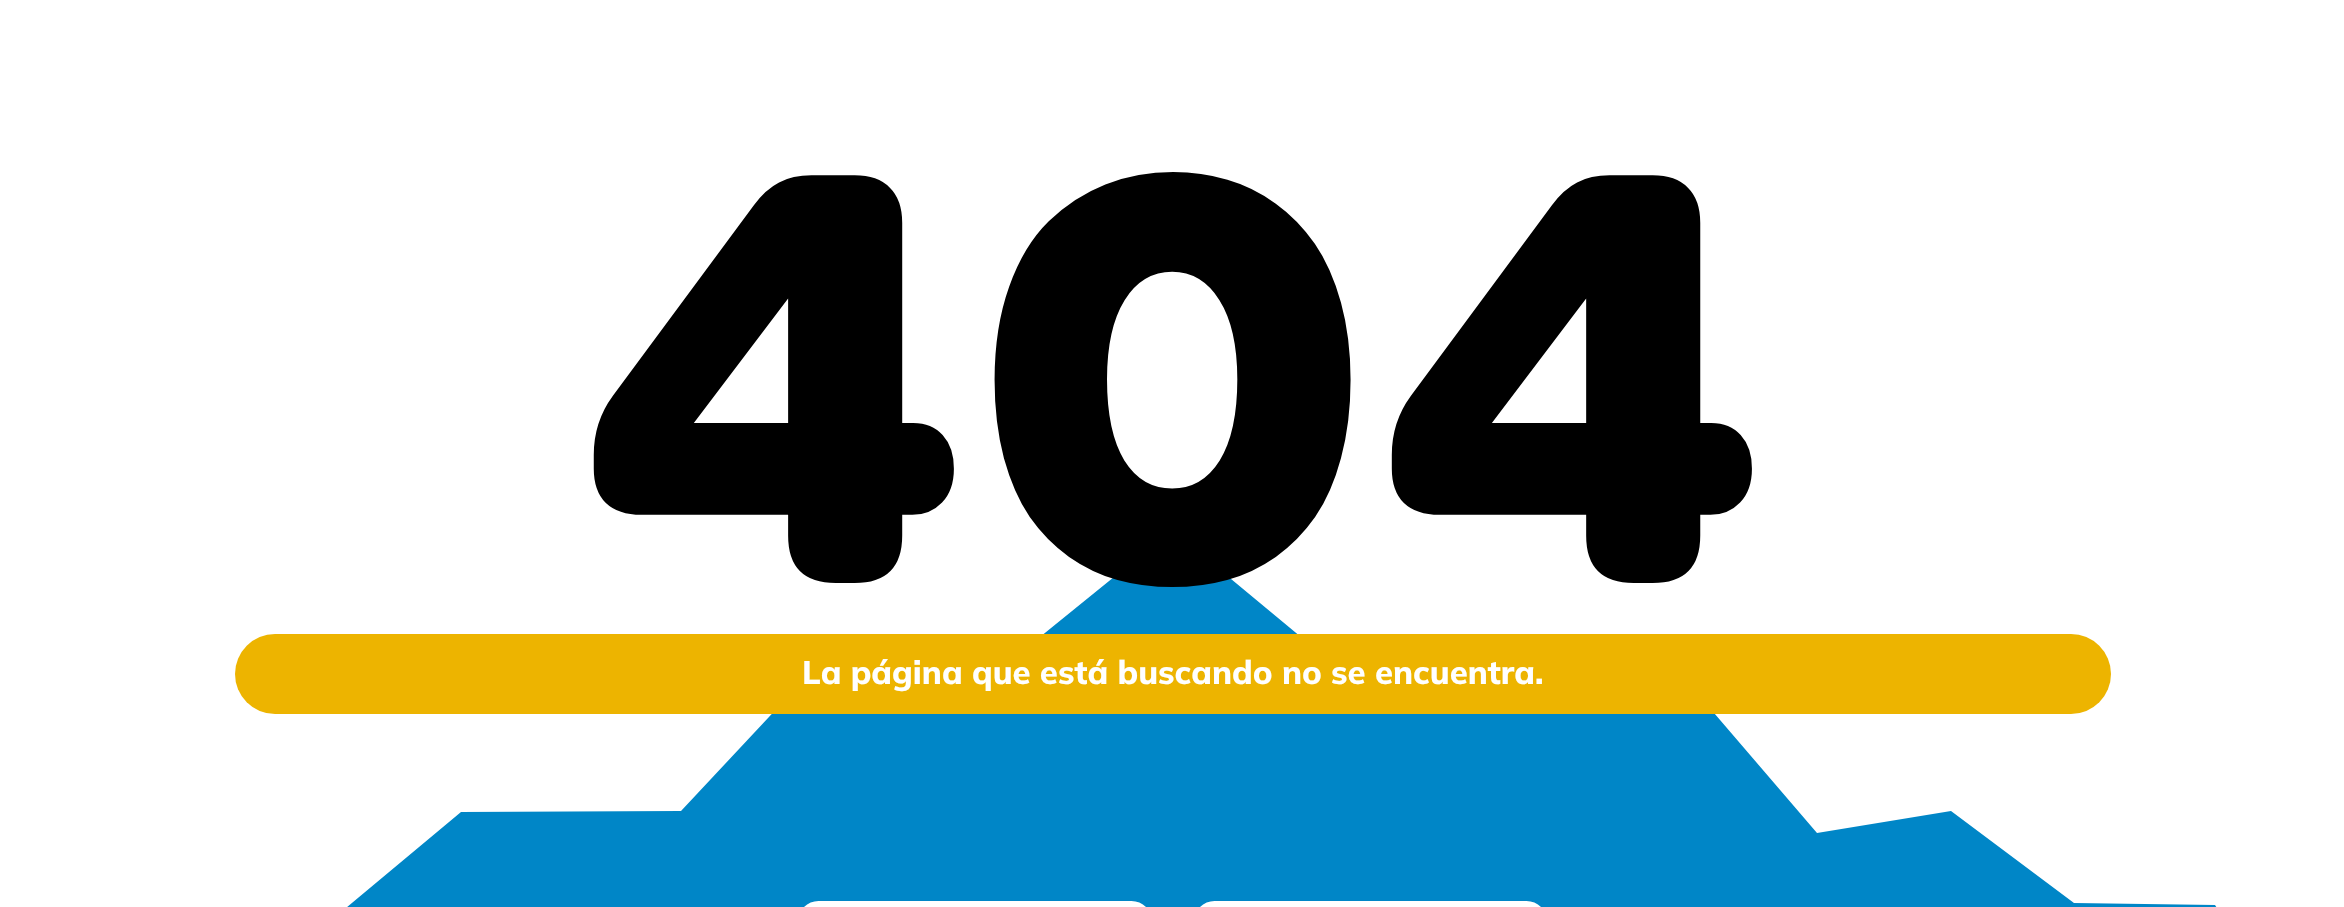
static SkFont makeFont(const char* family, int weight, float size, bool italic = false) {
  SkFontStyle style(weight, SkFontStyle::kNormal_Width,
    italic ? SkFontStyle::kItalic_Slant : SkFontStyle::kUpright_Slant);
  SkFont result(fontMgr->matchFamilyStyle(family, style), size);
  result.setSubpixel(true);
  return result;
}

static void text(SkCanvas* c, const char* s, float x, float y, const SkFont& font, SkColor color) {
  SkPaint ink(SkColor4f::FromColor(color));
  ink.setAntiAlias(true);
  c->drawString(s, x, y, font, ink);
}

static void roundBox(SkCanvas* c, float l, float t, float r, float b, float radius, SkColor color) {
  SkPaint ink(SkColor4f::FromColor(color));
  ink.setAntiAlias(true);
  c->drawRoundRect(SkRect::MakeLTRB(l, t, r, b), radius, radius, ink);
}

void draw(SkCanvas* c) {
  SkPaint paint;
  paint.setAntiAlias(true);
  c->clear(0xffffffff);
  paint.setColor(0xff0086c7);
  c->drawPath(SkPathBuilder().moveTo(286, 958).lineTo(461, 812).lineTo(681, 811).lineTo(812, 671).lineTo(977, 688).lineTo(1172, 530).lineTo(1360, 686).lineTo(1517, 641).lineTo(1678, 671).lineTo(1817, 833).lineTo(1951, 811).lineTo(2074, 903).lineTo(2215, 905).lineTo(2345, 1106).lineTo(0, 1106).lineTo(119, 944).close().detach(), paint);
  SkFont face1 = makeFont("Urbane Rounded", 700, 563);
  text(c, "404", 577, 583, face1, 0xff000000);
  roundBox(c, 235, 634, 2111, 714, 40, 0xffedb400);
  SkFont face2 = makeFont("Mulish", 800, 32.8f);
  text(c, "La página que está buscando no se encuentra.", 802, 684, face2, 0xffffffff);
  roundBox(c, 798, 901, 1152, 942, 35, 0xffffffff);
  roundBox(c, 1194, 901, 1547, 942, 35, 0xffffffff);
}
